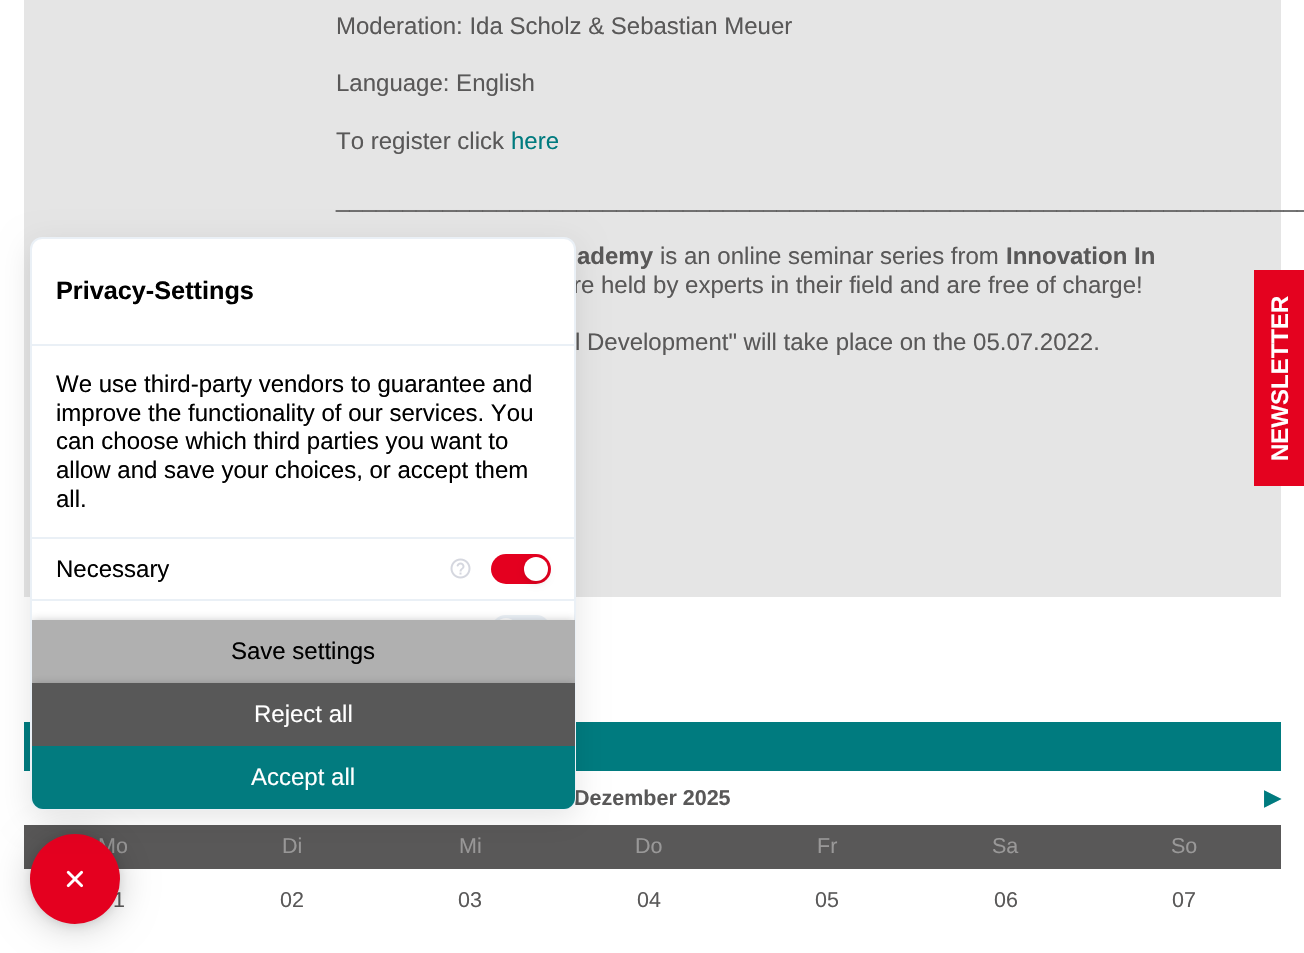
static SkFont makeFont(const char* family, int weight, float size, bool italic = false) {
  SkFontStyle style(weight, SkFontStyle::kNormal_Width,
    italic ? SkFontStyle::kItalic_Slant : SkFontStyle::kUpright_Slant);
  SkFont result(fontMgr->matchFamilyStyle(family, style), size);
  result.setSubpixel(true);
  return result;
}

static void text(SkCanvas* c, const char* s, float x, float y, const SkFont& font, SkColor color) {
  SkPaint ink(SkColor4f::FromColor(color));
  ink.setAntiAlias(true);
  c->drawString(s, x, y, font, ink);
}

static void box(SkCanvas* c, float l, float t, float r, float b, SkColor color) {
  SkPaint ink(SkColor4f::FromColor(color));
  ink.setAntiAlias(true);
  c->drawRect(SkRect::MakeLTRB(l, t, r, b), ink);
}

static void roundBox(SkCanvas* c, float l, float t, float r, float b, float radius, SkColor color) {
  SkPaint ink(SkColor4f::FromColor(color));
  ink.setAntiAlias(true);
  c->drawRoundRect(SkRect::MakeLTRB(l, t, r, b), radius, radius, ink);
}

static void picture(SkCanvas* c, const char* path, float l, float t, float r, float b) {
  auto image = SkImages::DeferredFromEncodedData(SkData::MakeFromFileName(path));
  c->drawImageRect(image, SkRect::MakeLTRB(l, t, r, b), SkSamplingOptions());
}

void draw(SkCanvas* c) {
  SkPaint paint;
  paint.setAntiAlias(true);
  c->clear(0xffffffff);
  box(c, 24, 0, 1281, 597, 0xffe5e5e5);
  SkFont face1 = makeFont("Liberation Sans", 400, 24);
  text(c, "Moderation: Ida Scholz & Sebastian Meuer", 336, 34, face1, 0xff595858);
  text(c, "Language: English", 336, 91, face1, 0xff595858);
  text(c, "To register click", 336, 149, face1, 0xff595858);
  text(c, "here", 511, 149, face1, 0xff007b7f);
  text(c, "_________________________________________________________________________", 336, 207, face1, 0xff595858);
  SkFont face2 = makeFont("Liberation Sans", 700, 24);
  text(c, "ademy", 577, 264, face2, 0xff595858);
  text(c, "is an online seminar series from", 660, 264, face1, 0xff595858);
  text(c, "Innovation In", 1006, 264, face2, 0xff595858);
  text(c, "re held by experts in their field and are free of charge!", 573, 293, face1, 0xff595858);
  text(c, "l Development\" will take place on the 05.07.2022.", 575, 350, face1, 0xff595858);
  box(c, 24, 722, 1281, 771, 0xff007b7f);
  SkFont face3 = makeFont("Liberation Sans", 700, 21.5f);
  text(c, "Dezember 2025", 574, 805, face3, 0xff595858);
  SkFont face4 = makeFont("DejaVu Sans", 700, 21.5f);
  text(c, "▶", 1264, 805, face4, 0xff007b7f);
  box(c, 24, 825, 1281, 869, 0xff595858);
  SkFont face5 = makeFont("Liberation Sans", 400, 21.5f);
  text(c, "Mo", 98, 853, face5, 0xff999898);
  text(c, "Di", 282, 853, face5, 0xff999898);
  text(c, "Mi", 459, 853, face5, 0xff999898);
  text(c, "Do", 635, 853, face5, 0xff999898);
  text(c, "Fr", 817, 853, face5, 0xff999898);
  text(c, "Sa", 992, 853, face5, 0xff999898);
  text(c, "So", 1171, 853, face5, 0xff999898);
  text(c, "1", 113, 907, face5, 0xff595858);
  text(c, "02", 280, 907, face5, 0xff595858);
  text(c, "03", 458, 907, face5, 0xff595858);
  text(c, "04", 637, 907, face5, 0xff595858);
  text(c, "05", 815, 907, face5, 0xff595858);
  text(c, "06", 994, 907, face5, 0xff595858);
  text(c, "07", 1172, 907, face5, 0xff595858);
  box(c, 1254, 270, 1304, 486, 0xffe4021f);
  c->save();
  c->rotate(-90, 1288, 461);
  text(c, "NEWSLETTER", 1288, 461, face2, 0xffffffff);
  c->restore();
  paint.setColor(0x33000000);
  paint.setMaskFilter(SkMaskFilter::MakeBlur(kNormal_SkBlurStyle, 18));
  c->drawRoundRect(SkRect::MakeLTRB(30, 837, 120, 927), 45, 45, paint);
  paint.setMaskFilter(nullptr);
  paint.setColor(0x1a000000);
  paint.setMaskFilter(SkMaskFilter::MakeBlur(kNormal_SkBlurStyle, 4.5f));
  c->drawRoundRect(SkRect::MakeLTRB(30, 836, 120, 926), 45, 45, paint);
  paint.setMaskFilter(nullptr);
  paint.setColor(0xffe4001f);
  c->drawCircle(75, 879, 45, paint);
  paint.setColor(0x1a000000);
  paint.setMaskFilter(SkMaskFilter::MakeBlur(kNormal_SkBlurStyle, 15));
  c->drawRoundRect(SkRect::MakeLTRB(30, 245, 576, 818), 12, 12, paint);
  paint.setMaskFilter(nullptr);
  paint.setColor(0xffffffff);
  c->drawRoundRect(SkRect::MakeLTRB(31, 238, 575, 809), 11, 11, paint);
  paint.setStyle(SkPaint::kStroke_Style);
  paint.setStrokeWidth(2);
  paint.setColor(0xffeaf0f6);
  c->drawRoundRect(SkRect::MakeLTRB(31, 238, 575, 809), 11, 11, paint);
  SkFont face6 = makeFont("Liberation Sans", 700, 25.25f);
  text(c, "Privacy-Settings", 56, 299, face6, 0xff000000);
  box(c, 32, 344, 575, 346, 0xffeaf0f6);
  text(c, "We use third-party vendors to guarantee and", 56, 392, face1, 0xff000000);
  text(c, "improve the functionality of our services. You", 56, 421, face1, 0xff000000);
  text(c, "can choose which third parties you want to", 56, 449, face1, 0xff000000);
  text(c, "allow and save your choices, or accept them", 56, 478, face1, 0xff000000);
  text(c, "all.", 56, 507, face1, 0xff000000);
  box(c, 32, 537, 575, 539, 0xffeaf0f6);
  text(c, "Necessary", 56, 577, face1, 0xff000000);
  picture(c, "img_01.png", 450, 558, 471, 579);
  roundBox(c, 491, 554, 551, 584, 15, 0xffe4001f);
  paint.setStyle(SkPaint::kFill_Style);
  paint.setColor(0x1a000000);
  paint.setMaskFilter(SkMaskFilter::MakeBlur(kNormal_SkBlurStyle, 3));
  c->drawRoundRect(SkRect::MakeLTRB(524, 560, 548, 584), 12, 12, paint);
  paint.setMaskFilter(nullptr);
  paint.setColor(0xffffffff);
  c->drawCircle(536, 569, 12, paint);
  box(c, 32, 599, 575, 601, 0xffeaf0f6);
  roundBox(c, 491, 615, 551, 645, 15, 0xffeaf0f6);
  c->drawCircle(506, 630, 12, paint);
  c->save();
  c->clipPath(SkPathBuilder().moveTo(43, 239).lineTo(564, 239).cubicTo(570, 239, 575, 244, 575, 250).lineTo(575, 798).cubicTo(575, 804, 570, 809, 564, 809).lineTo(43, 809).cubicTo(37, 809, 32, 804, 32, 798).lineTo(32, 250).cubicTo(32, 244, 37, 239, 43, 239).close().detach(), true);
  paint.setColor(0x47202124);
  paint.setMaskFilter(SkMaskFilter::MakeBlur(kNormal_SkBlurStyle, 4.5f));
  c->drawRect(SkRect::MakeLTRB(32, 621, 575, 684), paint);
  paint.setMaskFilter(nullptr);
  c->restore();
  box(c, 32, 620, 575, 683, 0xffb0b0b0);
  text(c, "Save settings", 231, 659, face1, 0xff000000);
  c->save();
  c->clipPath(SkPathBuilder().moveTo(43, 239).lineTo(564, 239).cubicTo(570, 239, 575, 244, 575, 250).lineTo(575, 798).cubicTo(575, 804, 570, 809, 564, 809).lineTo(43, 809).cubicTo(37, 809, 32, 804, 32, 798).lineTo(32, 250).cubicTo(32, 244, 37, 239, 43, 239).close().detach(), true);
  paint.setMaskFilter(SkMaskFilter::MakeBlur(kNormal_SkBlurStyle, 4.5f));
  c->drawRect(SkRect::MakeLTRB(32, 684, 575, 747), paint);
  paint.setMaskFilter(nullptr);
  c->restore();
  box(c, 32, 683, 575, 746, 0xff585858);
  text(c, "Reject all", 254, 722, face1, 0xffffffff);
  paint.setColor(0xff027b7f);
  c->drawPath(SkPathBuilder().moveTo(32, 746).lineTo(575, 746).lineTo(575, 798).cubicTo(575, 804, 570, 809, 564, 809).lineTo(43, 809).cubicTo(37, 809, 32, 804, 32, 798).close().detach(), paint);
  text(c, "Accept all", 251, 785, face1, 0xffffffff);
  picture(c, "img_02.png", 66, 870, 83, 888);
}
